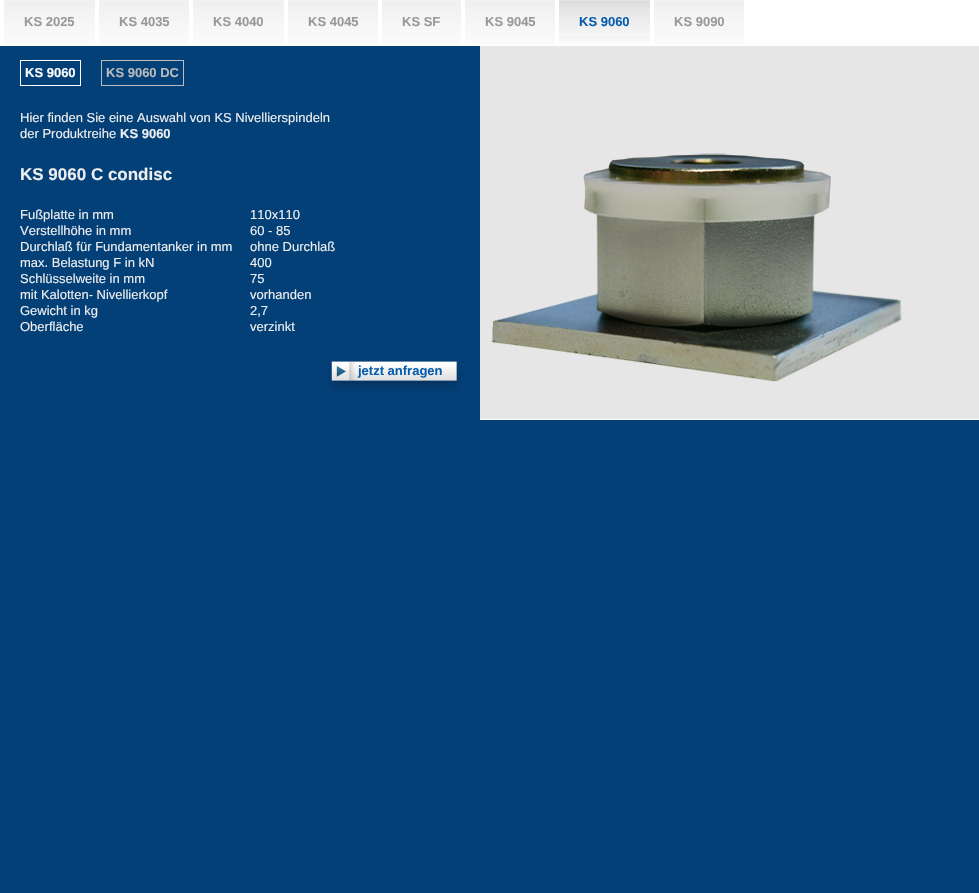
static SkFont makeFont(const char* family, int weight, float size, bool italic = false) {
  SkFontStyle style(weight, SkFontStyle::kNormal_Width,
    italic ? SkFontStyle::kItalic_Slant : SkFontStyle::kUpright_Slant);
  SkFont result(fontMgr->matchFamilyStyle(family, style), size);
  result.setSubpixel(true);
  return result;
}

static void text(SkCanvas* c, const char* s, float x, float y, const SkFont& font, SkColor color) {
  SkPaint ink(SkColor4f::FromColor(color));
  ink.setAntiAlias(true);
  c->drawString(s, x, y, font, ink);
}

static void box(SkCanvas* c, float l, float t, float r, float b, SkColor color) {
  SkPaint ink(SkColor4f::FromColor(color));
  ink.setAntiAlias(true);
  c->drawRect(SkRect::MakeLTRB(l, t, r, b), ink);
}

static void picture(SkCanvas* c, const char* path, float l, float t, float r, float b) {
  auto image = SkImages::DeferredFromEncodedData(SkData::MakeFromFileName(path));
  c->drawImageRect(image, SkRect::MakeLTRB(l, t, r, b), SkSamplingOptions());
}

void draw(SkCanvas* c) {
  SkPaint paint;
  paint.setAntiAlias(true);
  c->clear(0xff044078);
  box(c, 0, 0, 979, 46, 0xffffffff);
  picture(c, "img_01.png", 4, 0, 95, 44);
  SkFont face1 = makeFont("Liberation Sans", 700, 13);
  text(c, "KS 2025", 24, 26, face1, 0xff999999);
  picture(c, "img_02.png", 99, 0, 189, 44);
  text(c, "KS 4035", 119, 26, face1, 0xff999999);
  picture(c, "img_01.png", 193, 0, 284, 44);
  text(c, "KS 4040", 213, 26, face1, 0xff999999);
  picture(c, "img_02.png", 288, 0, 378, 44);
  text(c, "KS 4045", 308, 26, face1, 0xff999999);
  picture(c, "img_03.png", 382, 0, 461, 44);
  text(c, "KS SF", 402, 26, face1, 0xff999999);
  picture(c, "img_02.png", 465, 0, 555, 44);
  text(c, "KS 9045", 485, 26, face1, 0xff999999);
  picture(c, "img_04.png", 559, 0, 650, 43);
  text(c, "KS 9060", 579, 26, face1, 0xff065dad);
  picture(c, "img_02.png", 654, 0, 744, 44);
  text(c, "KS 9090", 674, 26, face1, 0xff999999);
  paint.setStyle(SkPaint::kStroke_Style);
  paint.setStrokeWidth(1);
  paint.setColor(0xffffffff);
  c->drawRect(SkRect::MakeLTRB(20.5f, 60.5f, 80.5f, 85.5f), paint);
  text(c, "KS 9060", 25, 77, face1, 0xffffffff);
  paint.setColor(0xffbbbbbb);
  c->drawRect(SkRect::MakeLTRB(101.5f, 60.5f, 183.5f, 85.5f), paint);
  text(c, "KS 9060 DC", 106, 77, face1, 0xffbbbbbb);
  picture(c, "img_05.png", 480, 46, 979, 420);
  SkFont face2 = makeFont("Liberation Sans", 400, 13);
  text(c, "Hier finden Sie eine Auswahl von KS Nivellierspindeln", 20, 122, face2, 0xffeeeeee);
  text(c, "der Produktreihe", 20, 138, face2, 0xffeeeeee);
  text(c, "KS 9060", 120, 138, face1, 0xffeeeeee);
  SkFont face3 = makeFont("Liberation Sans", 700, 17);
  text(c, "KS 9060 C condisc", 20, 180, face3, 0xffeeeeee);
  text(c, "Fußplatte in mm", 20, 219, face2, 0xffeeeeee);
  text(c, "110x110", 250, 219, face2, 0xffeeeeee);
  text(c, "Verstellhöhe in mm", 20, 235, face2, 0xffeeeeee);
  text(c, "60 - 85", 250, 235, face2, 0xffeeeeee);
  text(c, "Durchlaß für Fundamentanker in mm", 20, 251, face2, 0xffeeeeee);
  text(c, "ohne Durchlaß", 250, 251, face2, 0xffeeeeee);
  text(c, "max. Belastung F in kN", 20, 267, face2, 0xffeeeeee);
  text(c, "400", 250, 267, face2, 0xffeeeeee);
  text(c, "Schlüsselweite in mm", 20, 283, face2, 0xffeeeeee);
  text(c, "75", 250, 283, face2, 0xffeeeeee);
  text(c, "mit Kalotten- Nivellierkopf", 20, 299, face2, 0xffeeeeee);
  text(c, "vorhanden", 250, 299, face2, 0xffeeeeee);
  text(c, "Gewicht in kg", 20, 315, face2, 0xffeeeeee);
  text(c, "2,7", 250, 315, face2, 0xffeeeeee);
  text(c, "Oberfläche", 20, 331, face2, 0xffeeeeee);
  text(c, "verzinkt", 250, 331, face2, 0xffeeeeee);
  picture(c, "img_06.png", 326, 360, 463, 392);
  text(c, "jetzt anfragen", 358, 375, face1, 0xff065dad);
}
